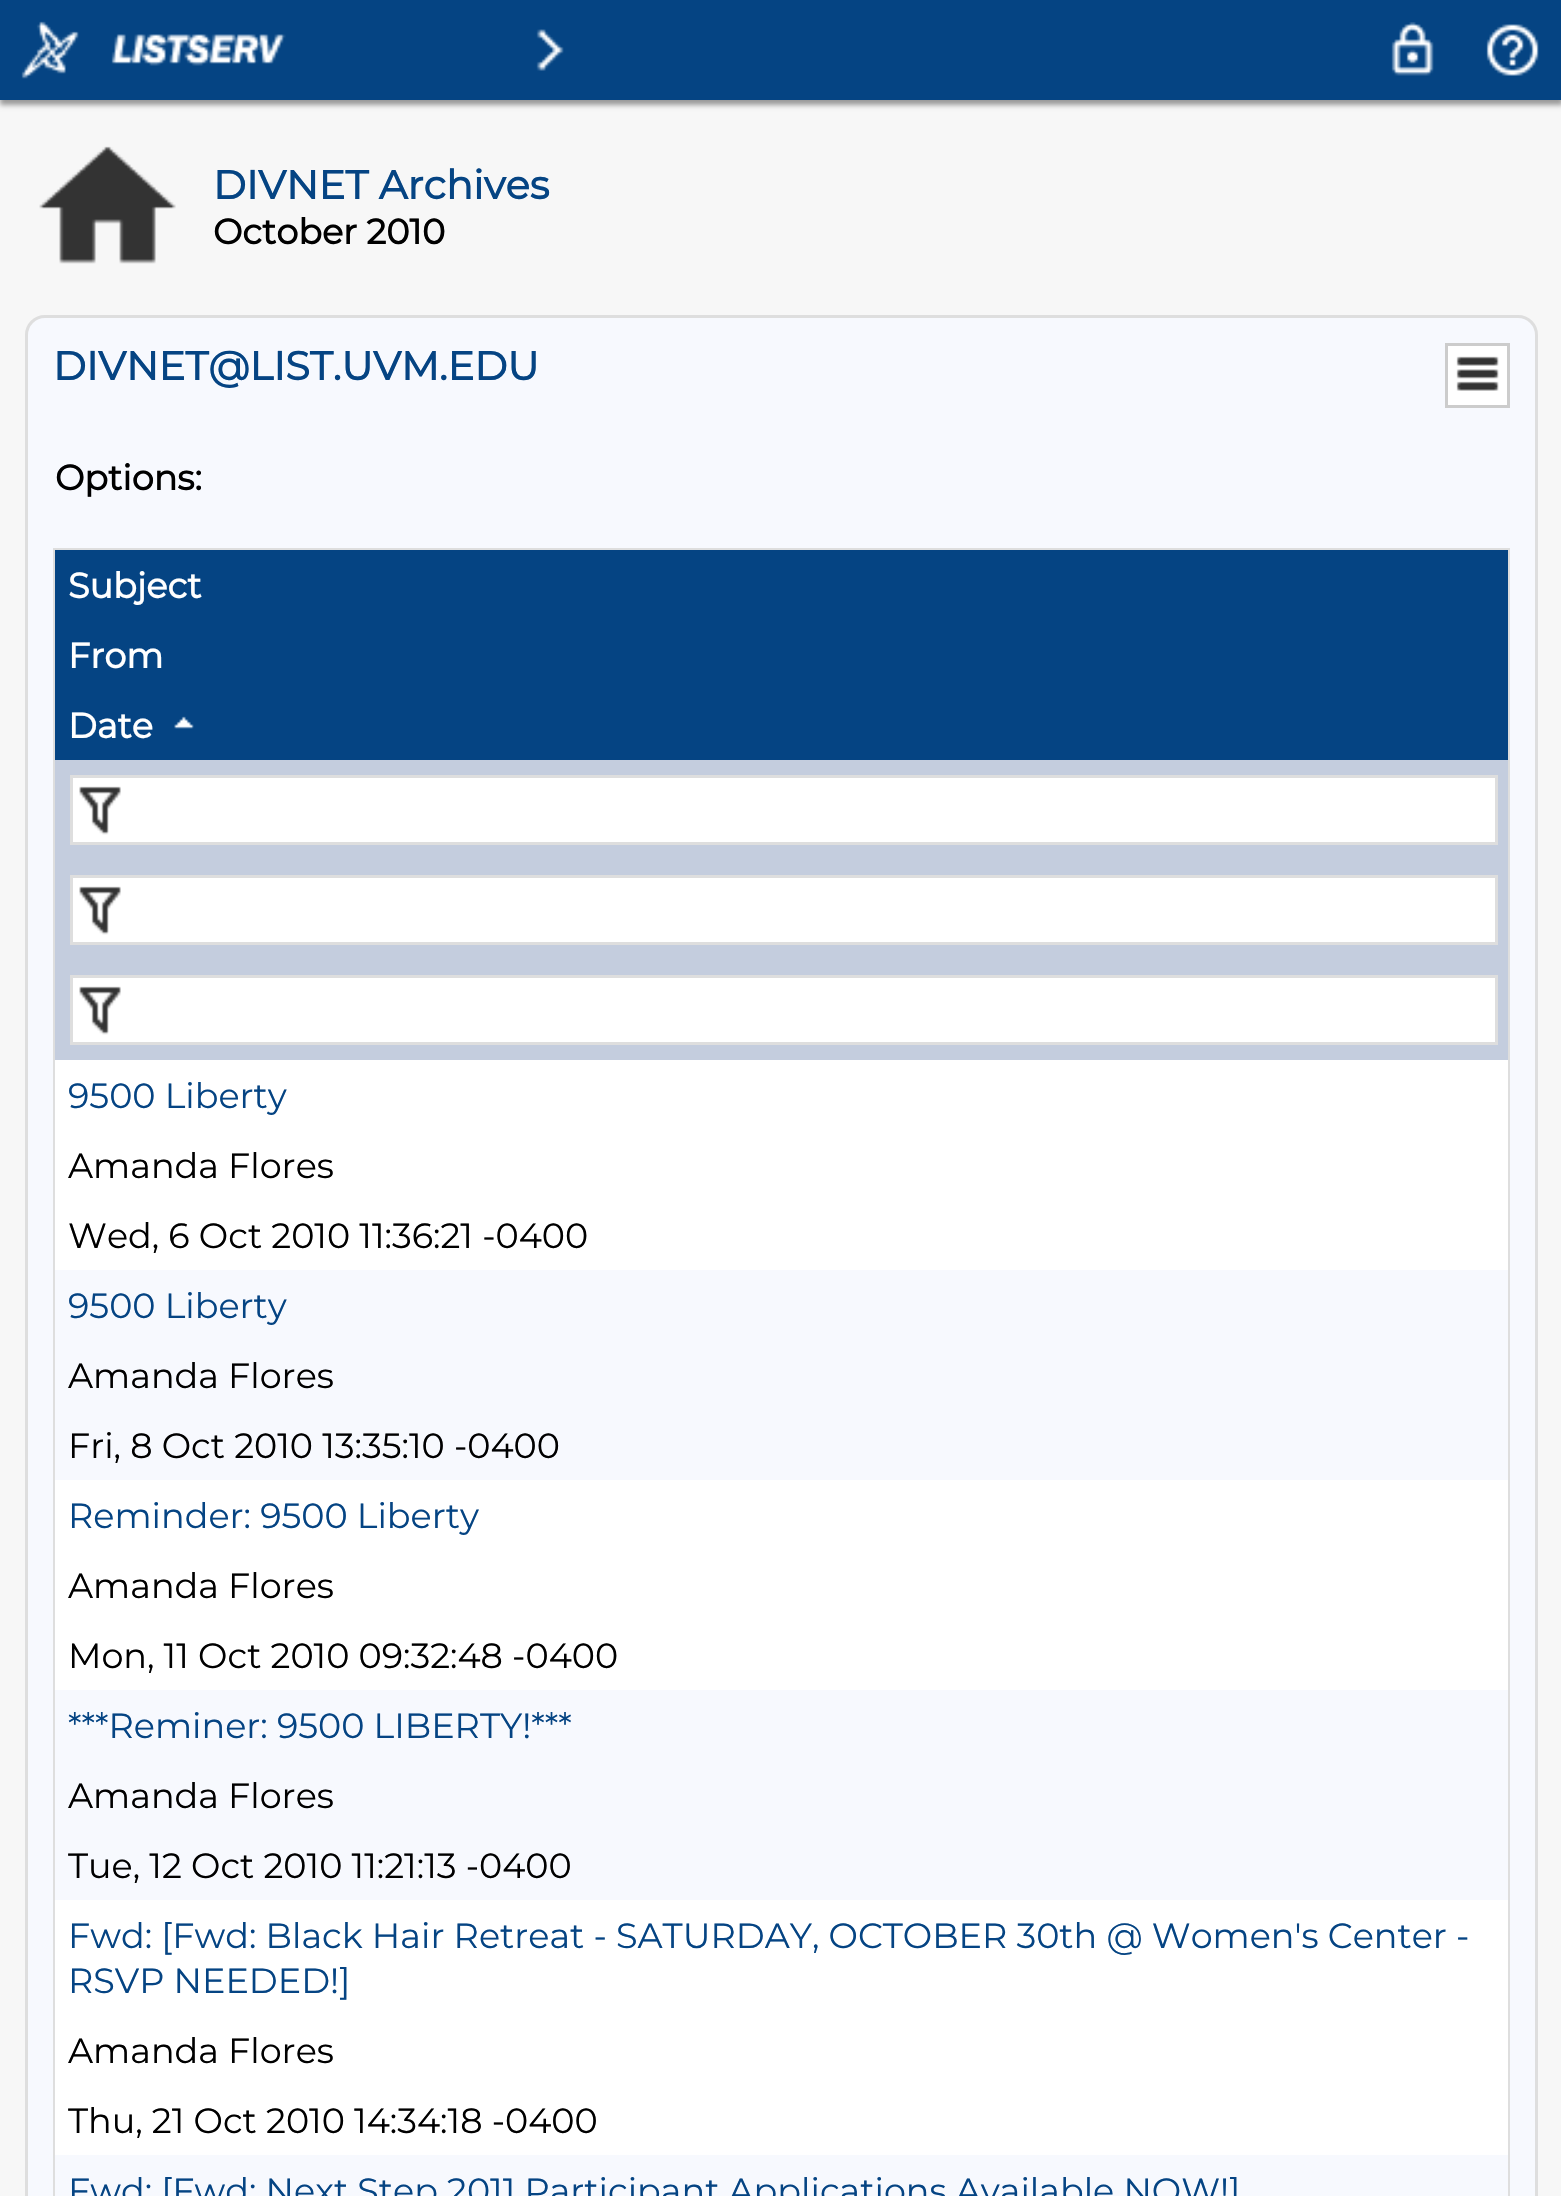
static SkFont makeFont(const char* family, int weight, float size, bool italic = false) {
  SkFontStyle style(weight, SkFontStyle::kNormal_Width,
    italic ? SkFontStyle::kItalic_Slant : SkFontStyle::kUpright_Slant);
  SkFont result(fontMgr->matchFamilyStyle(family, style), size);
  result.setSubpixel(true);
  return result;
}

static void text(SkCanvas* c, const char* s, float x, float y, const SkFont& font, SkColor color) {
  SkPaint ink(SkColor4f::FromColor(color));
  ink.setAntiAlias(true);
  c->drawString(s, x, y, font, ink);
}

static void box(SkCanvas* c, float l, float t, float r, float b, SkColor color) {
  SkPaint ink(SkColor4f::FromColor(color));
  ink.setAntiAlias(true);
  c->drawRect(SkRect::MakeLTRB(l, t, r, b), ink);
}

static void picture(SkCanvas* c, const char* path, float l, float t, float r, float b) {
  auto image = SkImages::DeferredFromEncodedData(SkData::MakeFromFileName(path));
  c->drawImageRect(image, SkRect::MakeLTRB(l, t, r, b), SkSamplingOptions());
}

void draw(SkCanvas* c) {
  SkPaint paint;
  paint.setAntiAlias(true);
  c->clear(0xfff7f7f7);
  paint.setColor(0xff999999);
  paint.setMaskFilter(SkMaskFilter::MakeBlur(kNormal_SkBlurStyle, 2.5f));
  c->drawRect(SkRect::MakeLTRB(0, 5, 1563, 105), paint);
  paint.setMaskFilter(nullptr);
  box(c, 0, 0, 1561, 100, 0xff054483);
  picture(c, "img_01.png", 21, 21, 79, 79);
  picture(c, "img_02.png", 111, 34, 286, 66);
  picture(c, "img_03.png", 536, 29, 564, 71);
  picture(c, "img_04.png", 1391, 22, 1434, 76);
  picture(c, "img_05.png", 1486, 24, 1539, 76);
  picture(c, "img_06.png", 39, 146, 176, 264);
  SkFont face1 = makeFont("Montserrat", 700, 40);
  text(c, "DIVNET Archives", 213, 199, face1, 0xff054483);
  SkFont face2 = makeFont("Montserrat", 700, 35);
  text(c, "October 2010", 213, 244, face2, 0xff000000);
  paint.setColor(0xfff7f9fe);
  c->drawRoundRect(SkRect::MakeLTRB(26.5f, 316.5f, 1536.5f, 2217.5f), 18.5f, 18.5f, paint);
  paint.setStyle(SkPaint::kStroke_Style);
  paint.setStrokeWidth(3);
  paint.setColor(0xffdedede);
  c->drawRoundRect(SkRect::MakeLTRB(26.5f, 316.5f, 1536.5f, 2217.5f), 18.5f, 18.5f, paint);
  text(c, "DIVNET@LIST.UVM.EDU", 53, 380, face1, 0xff054483);
  paint.setStyle(SkPaint::kFill_Style);
  paint.setColor(0xffffffff);
  c->drawRect(SkRect::MakeLTRB(1446.5f, 344.5f, 1508.5f, 406.5f), paint);
  paint.setStyle(SkPaint::kStroke_Style);
  paint.setColor(0xffcccccc);
  c->drawRect(SkRect::MakeLTRB(1446.5f, 344.5f, 1508.5f, 406.5f), paint);
  picture(c, "img_07.png", 1456, 356, 1499, 391);
  text(c, "Options:", 55, 490, face2, 0xff000000);
  paint.setColor(0xffdedede);
  c->drawRect(SkRect::MakeLTRB(54.5f, 549.5f, 1508.5f, 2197.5f), paint);
  box(c, 55, 550, 1508, 760, 0xff054483);
  text(c, "Subject", 68, 598, face2, 0xffffffff);
  text(c, "From", 68, 668, face2, 0xffffffff);
  text(c, "Date", 68, 738, face2, 0xffffffff);
  picture(c, "img_08.png", 174, 716, 194, 729);
  box(c, 55, 760, 1508, 1060, 0xffc4cdde);
  box(c, 73, 778, 1495, 842, 0xffffffff);
  picture(c, "img_09.png", 79, 786, 121, 835);
  c->drawRect(SkRect::MakeLTRB(71.5f, 776.5f, 1496.5f, 843.5f), paint);
  box(c, 73, 878, 1495, 942, 0xffffffff);
  picture(c, "img_09.png", 79, 886, 121, 935);
  c->drawRect(SkRect::MakeLTRB(71.5f, 876.5f, 1496.5f, 943.5f), paint);
  box(c, 73, 978, 1495, 1042, 0xffffffff);
  picture(c, "img_09.png", 79, 986, 121, 1035);
  c->drawRect(SkRect::MakeLTRB(71.5f, 976.5f, 1496.5f, 1043.5f), paint);
  box(c, 55, 1060, 1508, 1270, 0xffffffff);
  SkFont face3 = makeFont("Montserrat", 100, 35);
  text(c, "9500 Liberty", 68, 1108, face3, 0xff054483);
  text(c, "Amanda Flores", 68, 1178, face3, 0xff000000);
  text(c, "Wed, 6 Oct 2010 11:36:21 -0400", 68, 1248, face3, 0xff000000);
  box(c, 55, 1270, 1508, 1480, 0xfff7f9fe);
  text(c, "9500 Liberty", 68, 1318, face3, 0xff054483);
  text(c, "Amanda Flores", 68, 1388, face3, 0xff000000);
  text(c, "Fri, 8 Oct 2010 13:35:10 -0400", 68, 1458, face3, 0xff000000);
  box(c, 55, 1480, 1508, 1690, 0xffffffff);
  text(c, "Reminder: 9500 Liberty", 68, 1528, face3, 0xff054483);
  text(c, "Amanda Flores", 68, 1598, face3, 0xff000000);
  text(c, "Mon, 11 Oct 2010 09:32:48 -0400", 68, 1668, face3, 0xff000000);
  box(c, 55, 1690, 1508, 1900, 0xfff7f9fe);
  text(c, "***Reminer: 9500 LIBERTY!***", 68, 1738, face3, 0xff054483);
  text(c, "Amanda Flores", 68, 1808, face3, 0xff000000);
  text(c, "Tue, 12 Oct 2010 11:21:13 -0400", 68, 1878, face3, 0xff000000);
  box(c, 55, 1900, 1508, 2155, 0xffffffff);
  text(c, "Fwd: [Fwd: Black Hair Retreat - SATURDAY, OCTOBER 30th @ Women's Center -", 68, 1948, face3, 0xff054483);
  text(c, "RSVP NEEDED!]", 68, 1993, face3, 0xff054483);
  text(c, "Amanda Flores", 68, 2063, face3, 0xff000000);
  text(c, "Thu, 21 Oct 2010 14:34:18 -0400", 68, 2133, face3, 0xff000000);
  box(c, 55, 2155, 1508, 2196, 0xfff7f9fe);
  text(c, "Fwd: [Fwd: Next Step 2011 Participant Applications Available NOW!]", 68, 2203, face3, 0xff054483);
}
